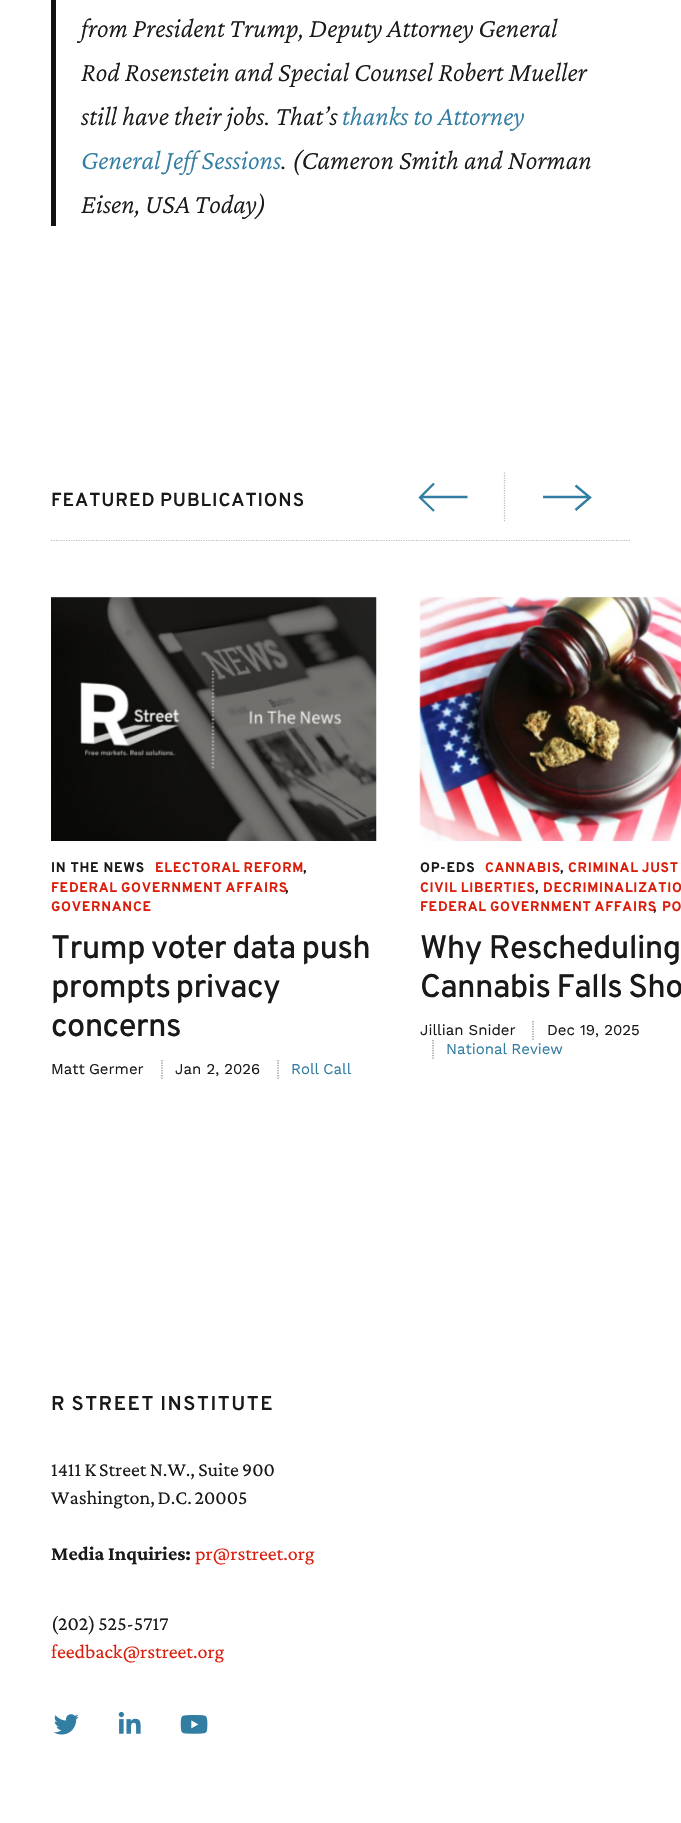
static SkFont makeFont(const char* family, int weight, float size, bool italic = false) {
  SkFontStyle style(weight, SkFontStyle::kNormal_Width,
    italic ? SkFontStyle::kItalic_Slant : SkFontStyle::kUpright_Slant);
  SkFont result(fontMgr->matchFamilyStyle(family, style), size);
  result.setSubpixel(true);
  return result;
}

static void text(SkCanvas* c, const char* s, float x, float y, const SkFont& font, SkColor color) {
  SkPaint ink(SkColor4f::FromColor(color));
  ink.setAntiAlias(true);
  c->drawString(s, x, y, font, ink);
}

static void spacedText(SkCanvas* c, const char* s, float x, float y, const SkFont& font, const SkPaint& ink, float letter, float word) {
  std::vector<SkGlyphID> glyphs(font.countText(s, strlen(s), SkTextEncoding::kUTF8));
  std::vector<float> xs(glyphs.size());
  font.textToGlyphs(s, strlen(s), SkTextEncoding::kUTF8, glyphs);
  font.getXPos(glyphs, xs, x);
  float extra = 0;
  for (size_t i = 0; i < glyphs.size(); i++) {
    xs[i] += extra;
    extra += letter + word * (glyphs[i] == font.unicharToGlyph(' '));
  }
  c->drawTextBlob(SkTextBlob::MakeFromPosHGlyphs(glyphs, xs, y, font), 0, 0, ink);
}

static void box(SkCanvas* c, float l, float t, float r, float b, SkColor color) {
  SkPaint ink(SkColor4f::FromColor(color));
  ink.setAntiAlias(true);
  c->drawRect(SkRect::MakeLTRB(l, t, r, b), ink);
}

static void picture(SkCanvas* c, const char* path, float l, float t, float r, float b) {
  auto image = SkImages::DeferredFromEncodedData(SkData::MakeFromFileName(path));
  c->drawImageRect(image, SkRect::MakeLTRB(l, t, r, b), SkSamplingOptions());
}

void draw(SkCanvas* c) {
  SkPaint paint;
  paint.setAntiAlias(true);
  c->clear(0xffffffff);
  box(c, 51, 0, 56, 226, 0xff111111);
  SkFont face1 = makeFont("Crimson Pro", 300, 27.5f, true);
  paint.setColor(0xff191919);
  spacedText(c, "from President Trump, Deputy Attorney General", 81, 37, face1, paint, 0, -0.5f);
  spacedText(c, "Rod Rosenstein and Special Counsel Robert Mueller", 81, 81, face1, paint, 0, -0.25f);
  text(c, "still have their jobs. That’s", 81, 125, face1, 0xff191919);
  text(c, "thanks to Attorney", 342, 125, face1, 0xff327da2);
  text(c, ".", 281, 169, face1, 0xff191919);
  paint.setColor(0xff327da2);
  spacedText(c, "General Jeff Sessions", 81, 169, face1, paint, 0, -0.5f);
  text(c, "(Cameron Smith and Norman", 292, 169, face1, 0xff191919);
  paint.setColor(0xff191919);
  spacedText(c, "Eisen, USA Today)", 81, 213, face1, paint, 0, -1);
  paint.setStyle(SkPaint::kStroke_Style);
  paint.setStrokeWidth(1.2f);
  paint.setColor(0xffbababa);
  paint.setPathEffect(SkDashPathEffect::Make({{1.25f, 1.25f}}, 0));
  c->drawPath(SkPathBuilder().moveTo(51, 540.5f).lineTo(630, 540.5f).detach(), paint);
  paint.setPathEffect(nullptr);
  SkFont face2 = makeFont("Overpass", 600, 18.75f);
  paint.setStyle(SkPaint::kFill_Style);
  paint.setColor(0xff191919);
  spacedText(c, "FEATURED PUBLICATIONS", 51, 506, face2, paint, 0.9f, -1);
  paint.setStyle(SkPaint::kStroke_Style);
  paint.setStrokeWidth(2.3f);
  paint.setColor(0xff327da2);
  c->drawPath(SkPathBuilder().moveTo(420, 497).lineTo(467.5f, 497).moveTo(434, 483.5f).lineTo(420, 497.5f).lineTo(434, 511).detach(), paint);
  paint.setStrokeWidth(1.2f);
  paint.setColor(0xffbababa);
  paint.setPathEffect(SkDashPathEffect::Make({{1.25f, 1.25f}}, 0));
  c->drawPath(SkPathBuilder().moveTo(504.5f, 472.5f).lineTo(504.5f, 522.5f).detach(), paint);
  paint.setPathEffect(nullptr);
  paint.setStrokeWidth(2.4f);
  paint.setColor(0xff327da2);
  c->drawPath(SkPathBuilder().moveTo(590, 497).lineTo(543, 497).moveTo(575.5f, 485.5f).lineTo(590, 497.5f).lineTo(575.5f, 510).detach(), paint);
  picture(c, "img_01.png", 51, 597, 377, 841);
  SkFont face3 = makeFont("Overpass", 700, 13.75f);
  paint.setStyle(SkPaint::kFill_Style);
  paint.setColor(0xff191919);
  spacedText(c, "IN THE NEWS", 51, 872, face3, paint, 0.7f, 0);
  paint.setColor(0xffdb1e0c);
  spacedText(c, "ELECTORAL REFORM", 155, 872, face3, paint, 0.7f, -1);
  paint.setColor(0xff191919);
  spacedText(c, ",", 303, 872, face3, paint, 0.7f, 0);
  spacedText(c, ",", 285, 892, face3, paint, 0.7f, 0);
  paint.setColor(0xffdb1e0c);
  spacedText(c, "FEDERAL GOVERNMENT AFFAIRS", 51, 892, face3, paint, 0.7f, -1);
  spacedText(c, "GOVERNANCE", 51, 911, face3, paint, 0.7f, 0);
  SkFont face4 = makeFont("Overpass", 500, 32.5f);
  paint.setColor(0xff191919);
  spacedText(c, "Trump voter data push", 51, 958, face4, paint, -0.65f, -1);
  spacedText(c, "prompts privacy", 51, 997, face4, paint, -0.65f, -2);
  spacedText(c, "concerns", 51, 1036, face4, paint, -0.65f, 0);
  SkFont face5 = makeFont("Work Sans", 400, 15);
  spacedText(c, "Matt Germer", 51, 1074, face5, paint, 0, -1);
  paint.setStyle(SkPaint::kStroke_Style);
  paint.setStrokeWidth(1.2f);
  paint.setColor(0xff808080);
  paint.setPathEffect(SkDashPathEffect::Make({{1.25f, 1.25f}}, 0));
  c->drawPath(SkPathBuilder().moveTo(162, 1060).lineTo(162, 1079).detach(), paint);
  paint.setPathEffect(nullptr);
  text(c, "Jan 2, 2026", 175, 1074, face5, 0xff191919);
  paint.setPathEffect(SkDashPathEffect::Make({{1.25f, 1.25f}}, 0));
  c->drawPath(SkPathBuilder().moveTo(278, 1060).lineTo(278, 1079).detach(), paint);
  paint.setPathEffect(nullptr);
  paint.setStyle(SkPaint::kFill_Style);
  paint.setColor(0xff327da2);
  spacedText(c, "Roll Call", 291, 1074, face5, paint, 0, -1);
  picture(c, "img_02.png", 419, 597, 681, 841);
  paint.setColor(0xff191919);
  spacedText(c, "OP-EDS", 420, 872, face3, paint, 0.7f, 0);
  paint.setColor(0xffdb1e0c);
  spacedText(c, "CANNABIS", 485, 872, face3, paint, 0.7f, 0);
  paint.setColor(0xff191919);
  spacedText(c, ",", 560, 872, face3, paint, 0.7f, 0);
  paint.setColor(0xffdb1e0c);
  spacedText(c, "CRIMINAL JUST", 568, 872, face3, paint, 0.7f, -1);
  spacedText(c, "CIVIL LIBERTIES", 420, 892, face3, paint, 0.7f, -1);
  paint.setColor(0xff191919);
  spacedText(c, ",", 535, 892, face3, paint, 0.7f, 0);
  paint.setColor(0xffdb1e0c);
  spacedText(c, "DECRIMINALIZATIO", 543, 892, face3, paint, 0.7f, 0);
  paint.setColor(0xff191919);
  spacedText(c, ",", 653, 911, face3, paint, 0.7f, 0);
  paint.setColor(0xffdb1e0c);
  spacedText(c, "FEDERAL GOVERNMENT AFFAIRS", 420, 911, face3, paint, 0.7f, -1);
  spacedText(c, "PO", 662, 911, face3, paint, 0.7f, 0);
  paint.setColor(0xff191919);
  spacedText(c, "Why Rescheduling", 420, 958, face4, paint, -0.65f, 0);
  spacedText(c, "Cannabis Falls Sho", 420, 997, face4, paint, -0.65f, -1);
  text(c, "Jillian Snider", 420, 1035, face5, 0xff191919);
  paint.setStyle(SkPaint::kStroke_Style);
  paint.setColor(0xff808080);
  paint.setPathEffect(SkDashPathEffect::Make({{1.25f, 1.25f}}, 0));
  c->drawPath(SkPathBuilder().moveTo(533, 1021).lineTo(533, 1040).detach(), paint);
  paint.setPathEffect(nullptr);
  text(c, "Dec 19, 2025", 547, 1035, face5, 0xff191919);
  paint.setPathEffect(SkDashPathEffect::Make({{1.25f, 1.25f}}, 0));
  c->drawPath(SkPathBuilder().moveTo(433, 1040).lineTo(433, 1059).detach(), paint);
  paint.setPathEffect(nullptr);
  paint.setStyle(SkPaint::kFill_Style);
  paint.setColor(0xff327da2);
  spacedText(c, "National Review", 446, 1054, face5, paint, 0, -1);
  SkFont face6 = makeFont("Overpass", 600, 20);
  paint.setColor(0xff191919);
  spacedText(c, "R STREET INSTITUTE", 51, 1410, face6, paint, 1.5f, -1);
  SkFont face7 = makeFont("Crimson Pro", 400, 20);
  spacedText(c, "1411 K Street N.W., Suite 900", 51, 1476, face7, paint, 0, -0.5f);
  spacedText(c, "Washington, D.C. 20005", 51, 1504, face7, paint, 0, -1);
  SkFont face8 = makeFont("Crimson Pro", 700, 20);
  text(c, "Media Inquiries:", 51, 1560, face8, 0xff191919);
  text(c, "pr@rstreet.org", 195, 1560, face7, 0xffdb1e0c);
  spacedText(c, "(202) 525-5717", 51, 1630, face7, paint, 0, -1);
  text(c, "feedback@rstreet.org", 51, 1658, face7, 0xffdb1e0c);
  picture(c, "img_03.png", 54, 1714, 79, 1735);
  picture(c, "img_04.png", 118, 1711, 141, 1734);
  picture(c, "img_05.png", 180, 1715, 208, 1734);
}
